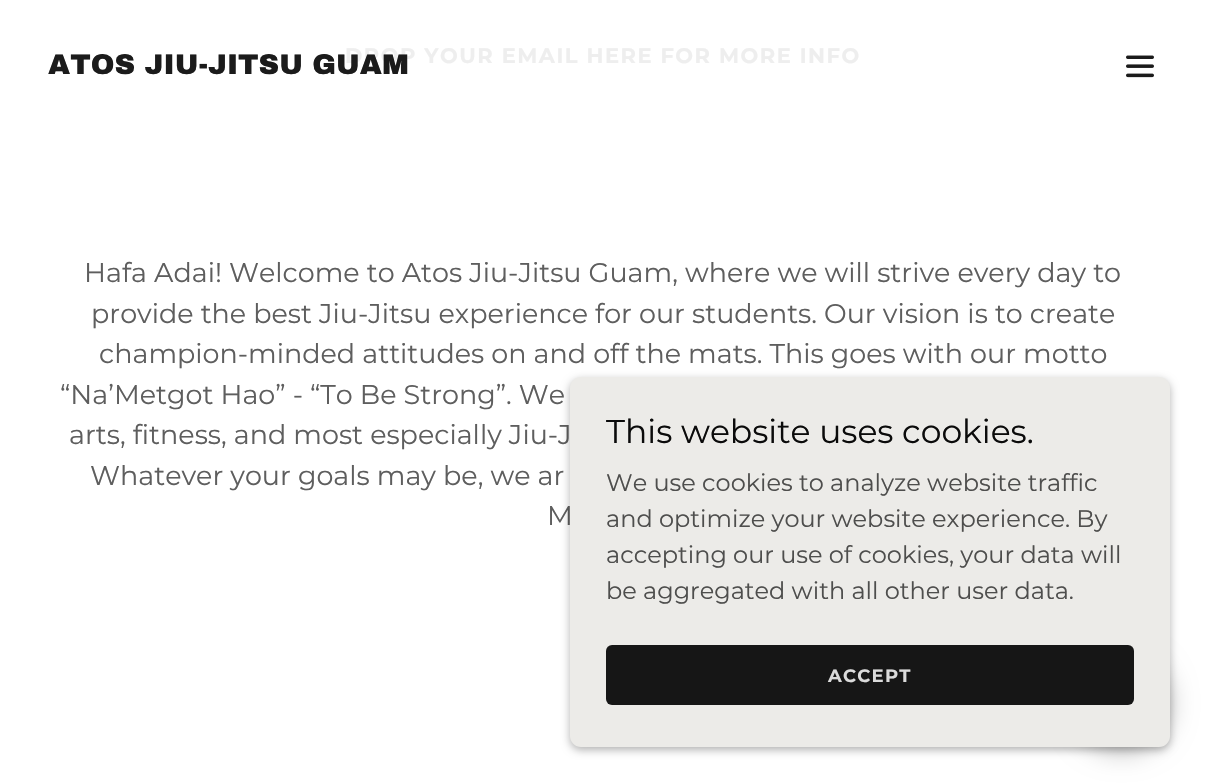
static SkFont makeFont(const char* family, int weight, float size, bool italic = false) {
  SkFontStyle style(weight, SkFontStyle::kNormal_Width,
    italic ? SkFontStyle::kItalic_Slant : SkFontStyle::kUpright_Slant);
  SkFont result(fontMgr->matchFamilyStyle(family, style), size);
  result.setSubpixel(true);
  return result;
}

static void text(SkCanvas* c, const char* s, float x, float y, const SkFont& font, SkColor color) {
  SkPaint ink(SkColor4f::FromColor(color));
  ink.setAntiAlias(true);
  c->drawString(s, x, y, font, ink);
}

static void spacedText(SkCanvas* c, const char* s, float x, float y, const SkFont& font, const SkPaint& ink, float letter, float word) {
  std::vector<SkGlyphID> glyphs(font.countText(s, strlen(s), SkTextEncoding::kUTF8));
  std::vector<float> xs(glyphs.size());
  font.textToGlyphs(s, strlen(s), SkTextEncoding::kUTF8, glyphs);
  font.getXPos(glyphs, xs, x);
  float extra = 0;
  for (size_t i = 0; i < glyphs.size(); i++) {
    xs[i] += extra;
    extra += letter + word * (glyphs[i] == font.unicharToGlyph(' '));
  }
  c->drawTextBlob(SkTextBlob::MakeFromPosHGlyphs(glyphs, xs, y, font), 0, 0, ink);
}

static void roundBox(SkCanvas* c, float l, float t, float r, float b, float radius, SkColor color) {
  SkPaint ink(SkColor4f::FromColor(color));
  ink.setAntiAlias(true);
  c->drawRoundRect(SkRect::MakeLTRB(l, t, r, b), radius, radius, ink);
}

static void picture(SkCanvas* c, const char* path, float l, float t, float r, float b) {
  auto image = SkImages::DeferredFromEncodedData(SkData::MakeFromFileName(path));
  c->drawImageRect(image, SkRect::MakeLTRB(l, t, r, b), SkSamplingOptions());
}

void draw(SkCanvas* c) {
  SkPaint paint;
  paint.setAntiAlias(true);
  c->clear(0xffffffff);
  SkFont face1 = makeFont("Montserrat", 700, 21);
  paint.setColor(0xffeeeeee);
  spacedText(c, "DROP YOUR EMAIL HERE FOR MORE INFO", 345, 63, face1, paint, 1.5f, 0);
  SkFont face2 = makeFont("Archivo Black", 900, 28.5f);
  text(c, "ATOS JIU-JITSU GUAM", 48, 74, face2, 0xff1b1b1b);
  picture(c, "img_01.png", 1126, 55, 1154, 78);
  SkFont face3 = makeFont("Montserrat", 400, 27);
  text(c, "Hafa Adai! Welcome to Atos Jiu-Jitsu Guam, where we will strive every day to", 84, 282, face3, 0xff5e5e5e);
  text(c, "provide the best Jiu-Jitsu experience for our students. Our vision is to create", 91, 323, face3, 0xff5e5e5e);
  text(c, "champion-minded attitudes on and off the mats. This goes with our motto", 99, 363, face3, 0xff5e5e5e);
  text(c, "“Na’Metgot Hao” - “To Be Strong”. We", 60, 404, face3, 0xff5e5e5e);
  text(c, "arts, fitness, and most especially Jiu-J", 69, 444, face3, 0xff5e5e5e);
  text(c, "Whatever your goals may be, we ar", 90, 485, face3, 0xff5e5e5e);
  text(c, "M", 547, 525, face3, 0xff5e5e5e);
  paint.setColor(0x4d000000);
  paint.setMaskFilter(SkMaskFilter::MakeBlur(kNormal_SkBlurStyle, 4.5f));
  c->drawRoundRect(SkRect::MakeLTRB(570, 380, 1170, 750), 11, 11, paint);
  paint.setMaskFilter(nullptr);
  paint.setColor(0x40000000);
  paint.setMaskFilter(SkMaskFilter::MakeBlur(kNormal_SkBlurStyle, 13.5f));
  c->drawRoundRect(SkRect::MakeLTRB(1073, 654, 1170, 752), 48.5f, 48.5f, paint);
  paint.setMaskFilter(nullptr);
  roundBox(c, 570, 377, 1170, 747, 11, 0xffecebe8);
  SkFont face4 = makeFont("Montserrat", 400, 33);
  text(c, "This website uses cookies.", 606, 443, face4, 0xff0b0b0b);
  SkFont face5 = makeFont("Montserrat", 400, 24);
  text(c, "We use cookies to analyze website traffic", 606, 491, face5, 0xff4e4e4d);
  text(c, "and optimize your website experience. By", 606, 527, face5, 0xff4e4e4d);
  text(c, "accepting our use of cookies, your data will", 606, 563, face5, 0xff4e4e4d);
  text(c, "be aggregated with all other user data.", 606, 599, face5, 0xff4e4e4d);
  roundBox(c, 606, 645, 1134, 705, 6, 0xff161616);
  SkFont face6 = makeFont("Montserrat", 700, 18);
  paint.setColor(0xffdbdbdb);
  spacedText(c, "ACCEPT", 828, 682, face6, paint, 1.25f, 0);
}
